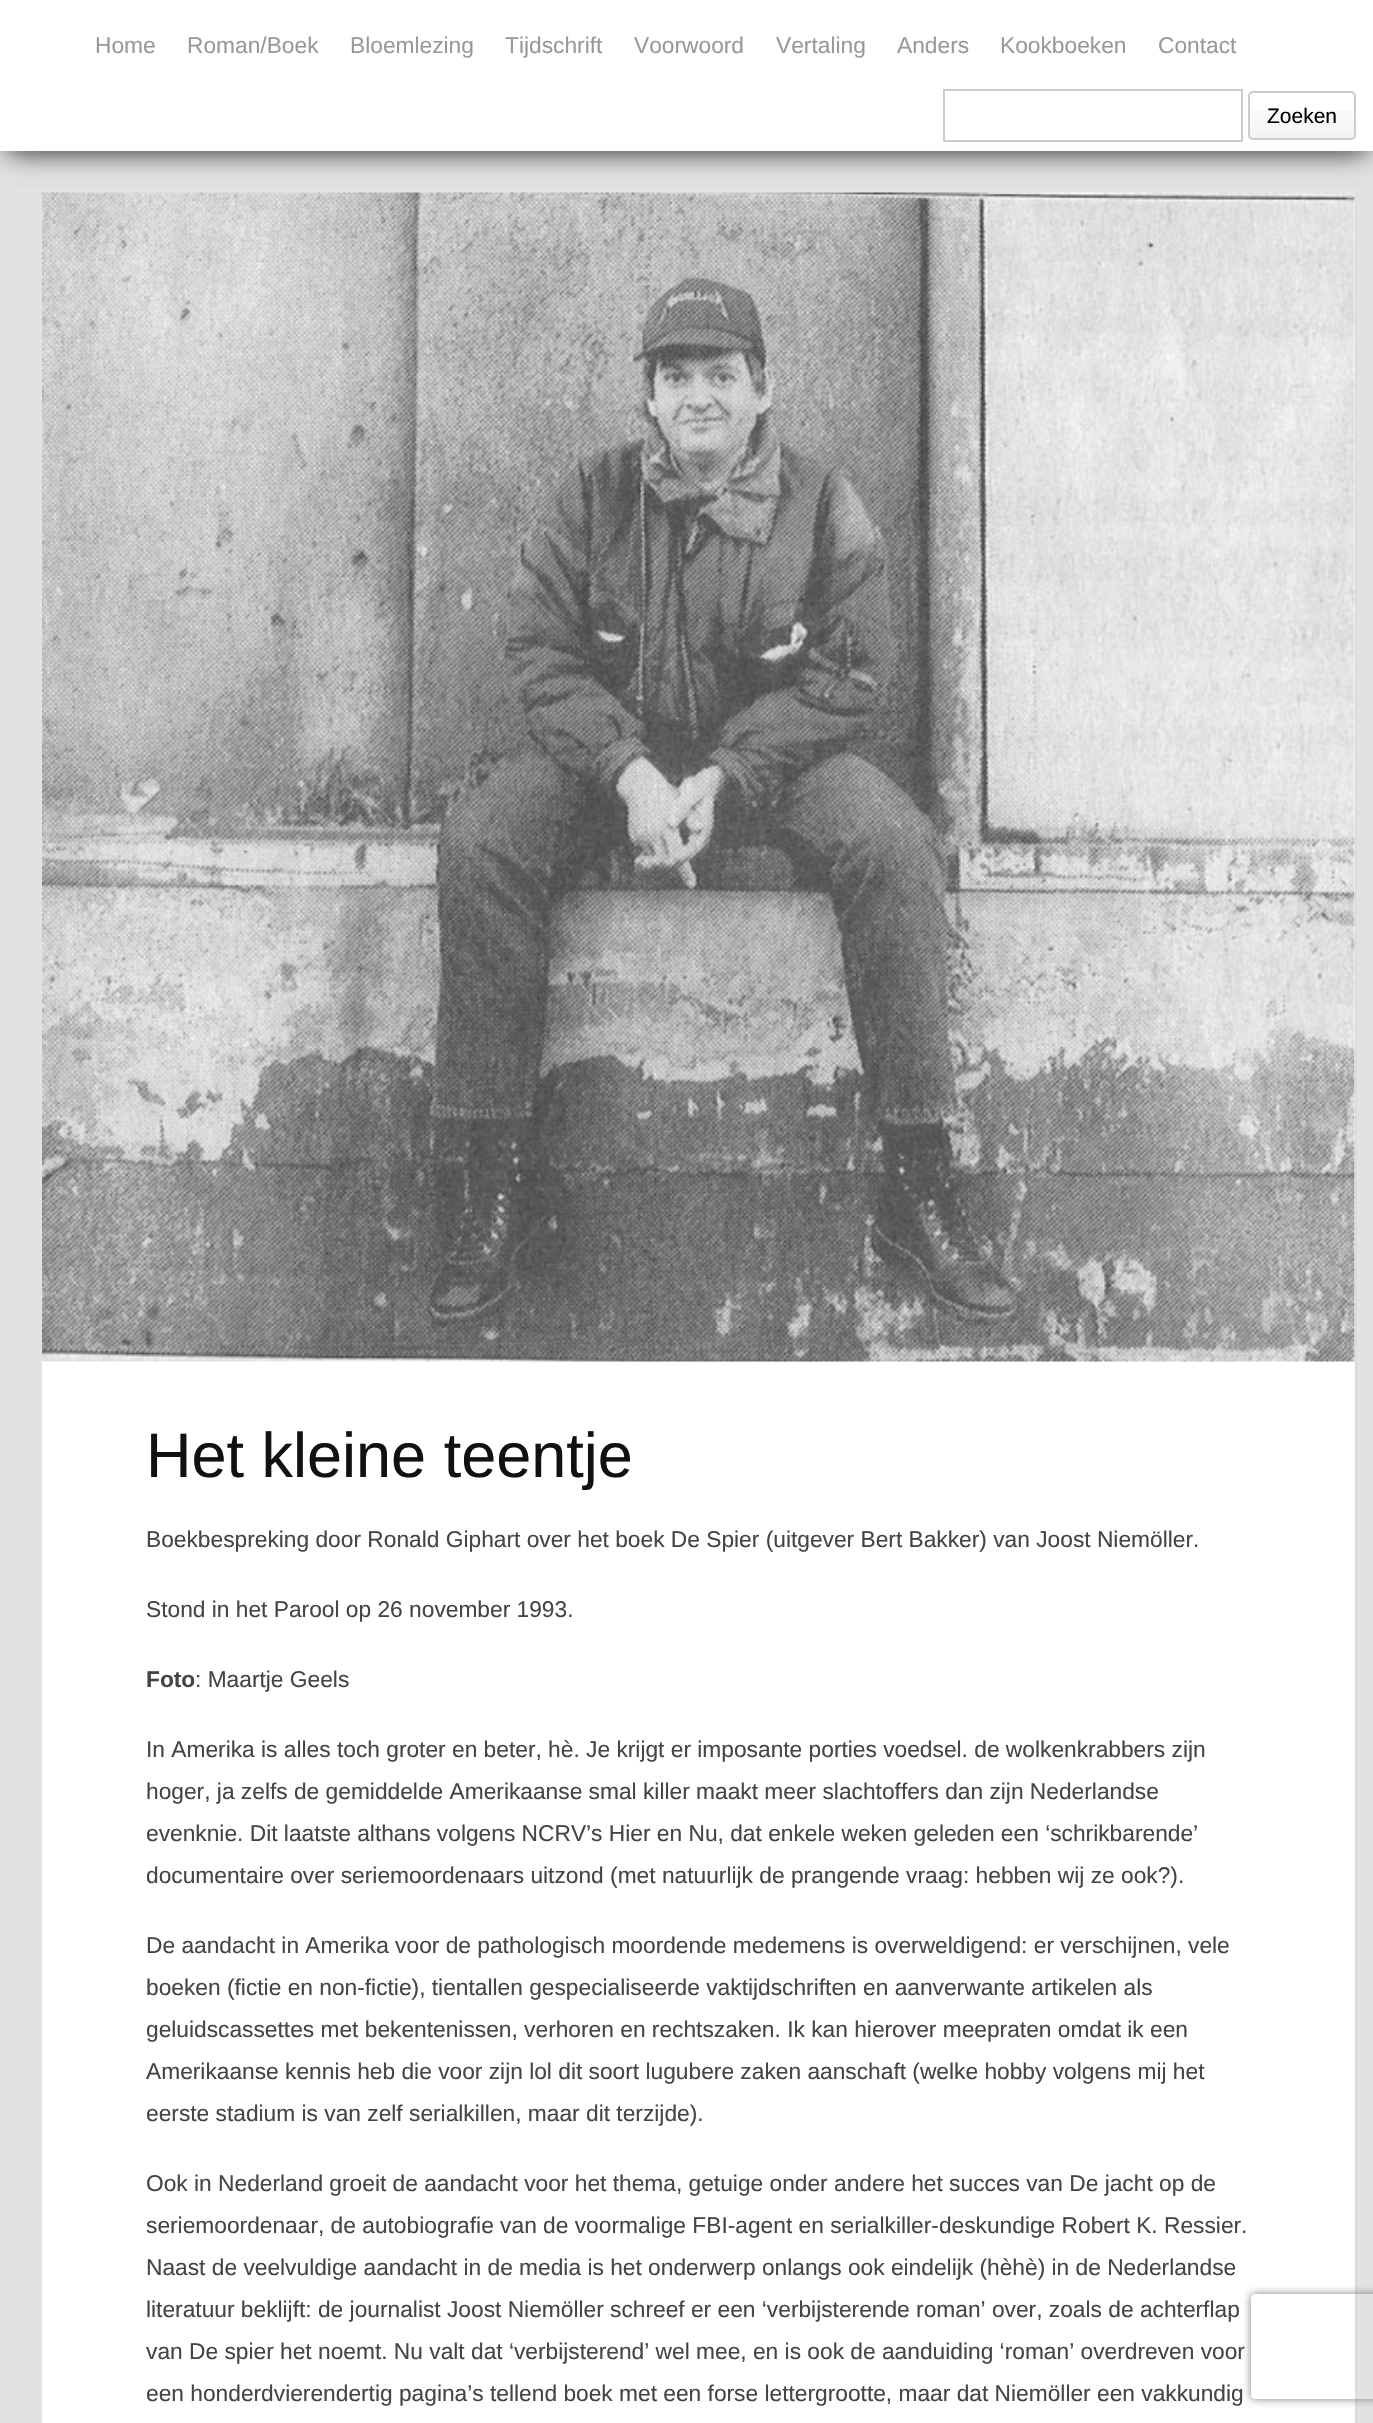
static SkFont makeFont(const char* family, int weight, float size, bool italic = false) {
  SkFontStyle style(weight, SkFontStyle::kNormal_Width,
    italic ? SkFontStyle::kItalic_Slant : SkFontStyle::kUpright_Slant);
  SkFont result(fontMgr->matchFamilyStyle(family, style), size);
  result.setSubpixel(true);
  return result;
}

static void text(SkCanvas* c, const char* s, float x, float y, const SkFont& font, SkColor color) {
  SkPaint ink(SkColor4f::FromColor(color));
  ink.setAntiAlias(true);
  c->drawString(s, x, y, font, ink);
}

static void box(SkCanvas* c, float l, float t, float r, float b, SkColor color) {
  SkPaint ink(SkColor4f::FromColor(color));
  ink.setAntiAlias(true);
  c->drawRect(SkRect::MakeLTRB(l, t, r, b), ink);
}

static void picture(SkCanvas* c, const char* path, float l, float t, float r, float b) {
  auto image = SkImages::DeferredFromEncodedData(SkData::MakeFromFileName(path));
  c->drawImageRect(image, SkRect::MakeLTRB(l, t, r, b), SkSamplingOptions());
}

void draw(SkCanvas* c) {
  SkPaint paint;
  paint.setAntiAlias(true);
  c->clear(0xffe2e2e2);
  paint.setColor(0xff555555);
  paint.setMaskFilter(SkMaskFilter::MakeBlur(kNormal_SkBlurStyle, 13));
  c->drawRect(SkRect::MakeLTRB(9, 16, 1365, 149), paint);
  paint.setMaskFilter(nullptr);
  paint.setMaskFilter(SkMaskFilter::MakeBlur(kNormal_SkBlurStyle, 13));
  c->drawRect(SkRect::MakeLTRB(9, 16, 1365, 149), paint);
  paint.setMaskFilter(nullptr);
  box(c, 0, 0, 1373, 151, 0xffffffff);
  SkFont face1 = makeFont("Liberation Sans", 400, 22.75f);
  text(c, "Home", 95, 53, face1, 0xff999999);
  text(c, "Roman/Boek", 187, 53, face1, 0xff999999);
  text(c, "Bloemlezing", 350, 53, face1, 0xff999999);
  text(c, "Tijdschrift", 505, 53, face1, 0xff999999);
  text(c, "Voorwoord", 634, 53, face1, 0xff999999);
  text(c, "Vertaling", 776, 53, face1, 0xff999999);
  text(c, "Anders", 897, 53, face1, 0xff999999);
  text(c, "Kookboeken", 1000, 53, face1, 0xff999999);
  text(c, "Contact", 1158, 53, face1, 0xff999999);
  paint.setStyle(SkPaint::kStroke_Style);
  paint.setStrokeWidth(2);
  paint.setColor(0xffcccccc);
  c->drawRect(SkRect::MakeLTRB(944, 90, 1242, 141), paint);
  picture(c, "img_01.png", 1248, 110, 1356, 139);
  c->drawRoundRect(SkRect::MakeLTRB(1249, 92, 1355, 139), 4, 4, paint);
  SkFont face2 = makeFont("Liberation Sans", 400, 21);
  text(c, "Zoeken", 1267, 123, face2, 0xff000000);
  box(c, 42, 193, 1355, 2423, 0xffffffff);
  box(c, 1355, 193, 1357, 2423, 0xffdbdbdb);
  picture(c, "img_02.png", 42, 192, 1355, 1362);
  SkFont face3 = makeFont("Liberation Sans", 400, 63);
  text(c, "Het kleine teentje", 146, 1477, face3, 0xff111111);
  text(c, "Boekbespreking door Ronald Giphart over het boek De Spier (uitgever Bert Bakker) van Joost Niemöller.", 146, 1547, face1, 0xff454545);
  text(c, "Stond in het Parool op 26 november 1993.", 146, 1617, face1, 0xff454545);
  SkFont face4 = makeFont("Liberation Sans", 700, 22.75f);
  text(c, "Foto", 146, 1687, face4, 0xff454545);
  text(c, ": Maartje Geels", 195, 1687, face1, 0xff454545);
  text(c, "In Amerika is alles toch groter en beter, hè. Je krijgt er imposante porties voedsel. de wolkenkrabbers zijn", 146, 1757, face1, 0xff454545);
  text(c, "hoger, ja zelfs de gemiddelde Amerikaanse smal killer maakt meer slachtoffers dan zijn Nederlandse", 146, 1799, face1, 0xff454545);
  text(c, "evenknie. Dit laatste althans volgens NCRV’s Hier en Nu, dat enkele weken geleden een ‘schrikbarende’", 146, 1841, face1, 0xff454545);
  text(c, "documentaire over seriemoordenaars uitzond (met natuurlijk de prangende vraag: hebben wij ze ook?).", 146, 1883, face1, 0xff454545);
  text(c, "De aandacht in Amerika voor de pathologisch moordende medemens is overweldigend: er verschijnen, vele", 146, 1953, face1, 0xff454545);
  text(c, "boeken (fictie en non-fictie), tientallen gespecialiseerde vaktijdschriften en aanverwante artikelen als", 146, 1995, face1, 0xff454545);
  text(c, "geluidscassettes met bekentenissen, verhoren en rechtszaken. Ik kan hierover meepraten omdat ik een", 146, 2037, face1, 0xff454545);
  text(c, "Amerikaanse kennis heb die voor zijn lol dit soort lugubere zaken aanschaft (welke hobby volgens mij het", 146, 2079, face1, 0xff454545);
  text(c, "eerste stadium is van zelf serialkillen, maar dit terzijde).", 146, 2121, face1, 0xff454545);
  text(c, "Ook in Nederland groeit de aandacht voor het thema, getuige onder andere het succes van De jacht op de", 146, 2191, face1, 0xff454545);
  text(c, "seriemoordenaar, de autobiografie van de voormalige FBI-agent en serialkiller-deskundige Robert K. Ressier.", 146, 2233, face1, 0xff454545);
  text(c, "Naast de veelvuldige aandacht in de media is het onderwerp onlangs ook eindelijk (hèhè) in de Nederlandse", 146, 2275, face1, 0xff454545);
  text(c, "literatuur beklijft: de journalist Joost Niemöller schreef er een ‘verbijsterende roman’ over, zoals de achterflap", 146, 2317, face1, 0xff454545);
  text(c, "van De spier het noemt. Nu valt dat ‘verbijsterend’ wel mee, en is ook de aanduiding ‘roman’ overdreven voor", 146, 2359, face1, 0xff454545);
  text(c, "een honderdvierendertig pagina’s tellend boek met een forse lettergrootte, maar dat Niemöller een vakkundig", 146, 2401, face1, 0xff454545);
  c->save();
  c->clipPath(SkPathBuilder(SkPathFillType::kEvenOdd).moveTo(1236, 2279).lineTo(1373, 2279).lineTo(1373, 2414).lineTo(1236, 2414).close().moveTo(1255, 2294).lineTo(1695, 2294).cubicTo(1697, 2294, 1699, 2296, 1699, 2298).lineTo(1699, 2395).cubicTo(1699, 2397, 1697, 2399, 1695, 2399).lineTo(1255, 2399).cubicTo(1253, 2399, 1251, 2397, 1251, 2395).lineTo(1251, 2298).cubicTo(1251, 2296, 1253, 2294, 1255, 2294).close().detach(), true);
  paint.setStyle(SkPaint::kFill_Style);
  paint.setColor(0xff808080);
  paint.setMaskFilter(SkMaskFilter::MakeBlur(kNormal_SkBlurStyle, 4.5f));
  c->drawRoundRect(SkRect::MakeLTRB(1251, 2294, 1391, 2399), 4, 4, paint);
  paint.setMaskFilter(nullptr);
  c->restore();
}
